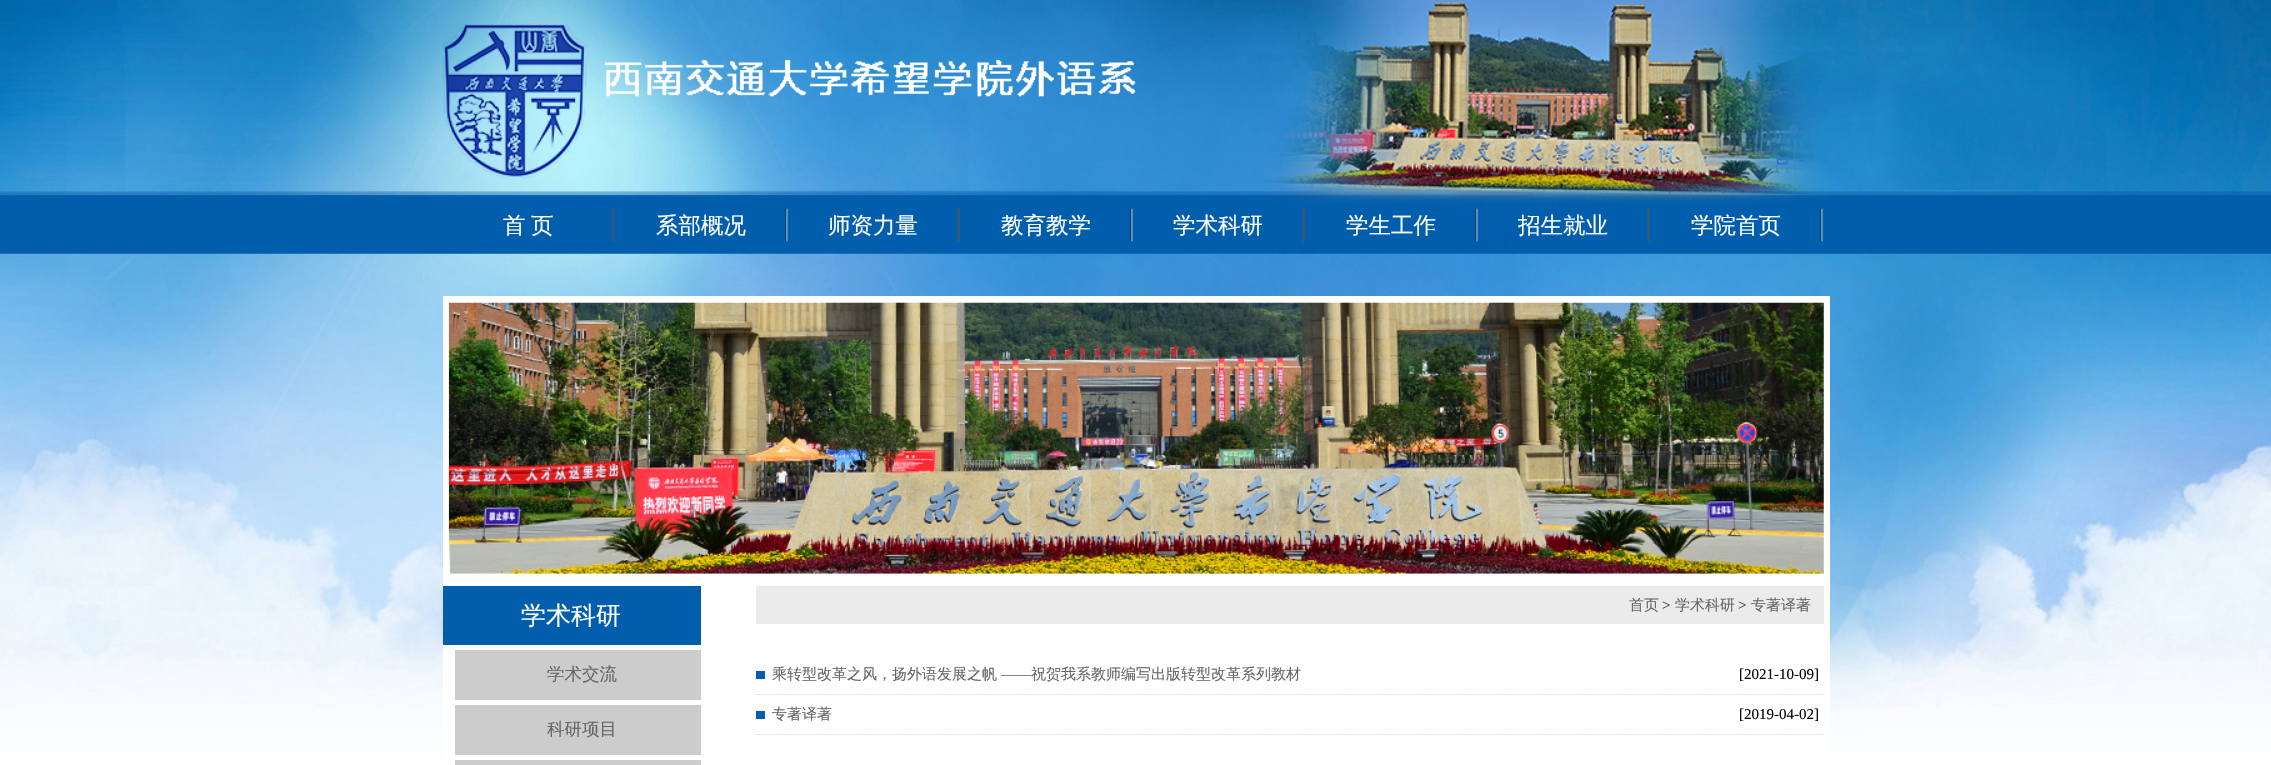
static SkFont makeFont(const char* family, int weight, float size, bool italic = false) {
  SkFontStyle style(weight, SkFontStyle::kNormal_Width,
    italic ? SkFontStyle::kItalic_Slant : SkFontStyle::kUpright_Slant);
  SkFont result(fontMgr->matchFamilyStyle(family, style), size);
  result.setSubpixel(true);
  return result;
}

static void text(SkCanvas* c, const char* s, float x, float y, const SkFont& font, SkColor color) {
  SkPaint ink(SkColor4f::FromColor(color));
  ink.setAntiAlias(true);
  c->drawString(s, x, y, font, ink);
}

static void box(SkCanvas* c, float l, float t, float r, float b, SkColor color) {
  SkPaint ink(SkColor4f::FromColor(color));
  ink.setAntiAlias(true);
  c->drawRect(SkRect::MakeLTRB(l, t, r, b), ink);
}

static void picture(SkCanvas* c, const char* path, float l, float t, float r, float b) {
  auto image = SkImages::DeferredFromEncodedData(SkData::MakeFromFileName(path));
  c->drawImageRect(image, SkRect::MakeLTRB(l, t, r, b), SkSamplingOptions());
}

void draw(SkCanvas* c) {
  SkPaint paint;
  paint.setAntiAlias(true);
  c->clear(0xffffffff);
  picture(c, "img_01.png", 0, 0, 2271, 760);
  picture(c, "img_02.png", 442, 23, 588, 179);
  picture(c, "img_03.png", 605, 59, 1136, 97);
  box(c, 612, 208, 615, 242, 0xff2d5a80);
  SkFont face1 = makeFont("WenQuanYi Zen Hei", 500, 22.5f);
  text(c, "首", 503, 233, face1, 0xffffffff);
  text(c, "页", 531, 233, face1, 0xffffffff);
  picture(c, "img_04.png", 784, 208, 788, 242);
  text(c, "系部概况", 656, 233, face1, 0xffffffff);
  box(c, 957, 208, 960, 242, 0xff2d5a80);
  text(c, "师资力量", 828, 233, face1, 0xffffffff);
  picture(c, "img_04.png", 1129, 208, 1133, 242);
  text(c, "教育教学", 1001, 233, face1, 0xffffffff);
  box(c, 1302, 208, 1305, 242, 0xff2e5a7f);
  text(c, "学术科研", 1173, 233, face1, 0xffffffff);
  picture(c, "img_05.png", 1474, 208, 1478, 242);
  text(c, "学生工作", 1346, 233, face1, 0xffffffff);
  box(c, 1647, 208, 1650, 242, 0xff2d5a7f);
  text(c, "招生就业", 1518, 233, face1, 0xffffffff);
  picture(c, "img_06.png", 1819, 208, 1823, 242);
  text(c, "学院首页", 1691, 233, face1, 0xffffffff);
  box(c, 443, 296, 1830, 760, 0xffffffff);
  picture(c, "img_07.png", 448, 302, 1824, 574);
  box(c, 443, 586, 701, 645, 0xff015eac);
  SkFont face2 = makeFont("WenQuanYi Zen Hei", 500, 25);
  text(c, "学术科研", 521, 624, face2, 0xffffffff);
  box(c, 455, 650, 701, 700, 0xffcccccc);
  SkFont face3 = makeFont("WenQuanYi Zen Hei", 500, 17.5f);
  text(c, "学术交流", 547, 680, face3, 0xff666666);
  box(c, 455, 705, 701, 755, 0xffcccccc);
  text(c, "科研项目", 547, 735, face3, 0xff666666);
  box(c, 455, 760, 701, 765, 0xffcccccc);
  box(c, 756, 586, 1824, 624, 0xffebebeb);
  SkFont face4 = makeFont("WenQuanYi Zen Hei", 500, 15);
  text(c, "首页", 1629, 610, face4, 0xff666666);
  SkFont face5 = makeFont("Liberation Serif", 400, 15);
  text(c, ">", 1662, 610, face5, 0xff383838);
  text(c, "学术科研", 1675, 610, face4, 0xff666666);
  text(c, ">", 1738, 610, face5, 0xff383838);
  text(c, "专著译著", 1751, 610, face4, 0xff666666);
  box(c, 756, 671, 765, 679, 0xff015eac);
  paint.setStyle(SkPaint::kStroke_Style);
  paint.setStrokeWidth(1.2f);
  paint.setColor(0xffd5d5d5);
  paint.setPathEffect(SkDashPathEffect::Make({{1.25f, 1.25f}}, 0));
  c->drawPath(SkPathBuilder().moveTo(756, 694.5f).lineTo(1824, 694.5f).detach(), paint);
  paint.setPathEffect(nullptr);
  text(c, "乘转型改革之风，扬外语发展之帆", 772, 679, face4, 0xff666666);
  text(c, "——", 1001, 679, face5, 0xff666666);
  text(c, "祝贺我系教师编写出版转型改革系列教材", 1031, 679, face4, 0xff666666);
  text(c, "[2021-10-09]", 1739, 679, face5, 0xff030303);
  box(c, 756, 711, 765, 719, 0xff015eac);
  paint.setPathEffect(SkDashPathEffect::Make({{1.25f, 1.25f}}, 0));
  c->drawPath(SkPathBuilder().moveTo(756, 734.5f).lineTo(1824, 734.5f).detach(), paint);
  paint.setPathEffect(nullptr);
  text(c, "专著译著", 772, 719, face4, 0xff666666);
  text(c, "[2019-04-02]", 1739, 719, face5, 0xff030303);
}
